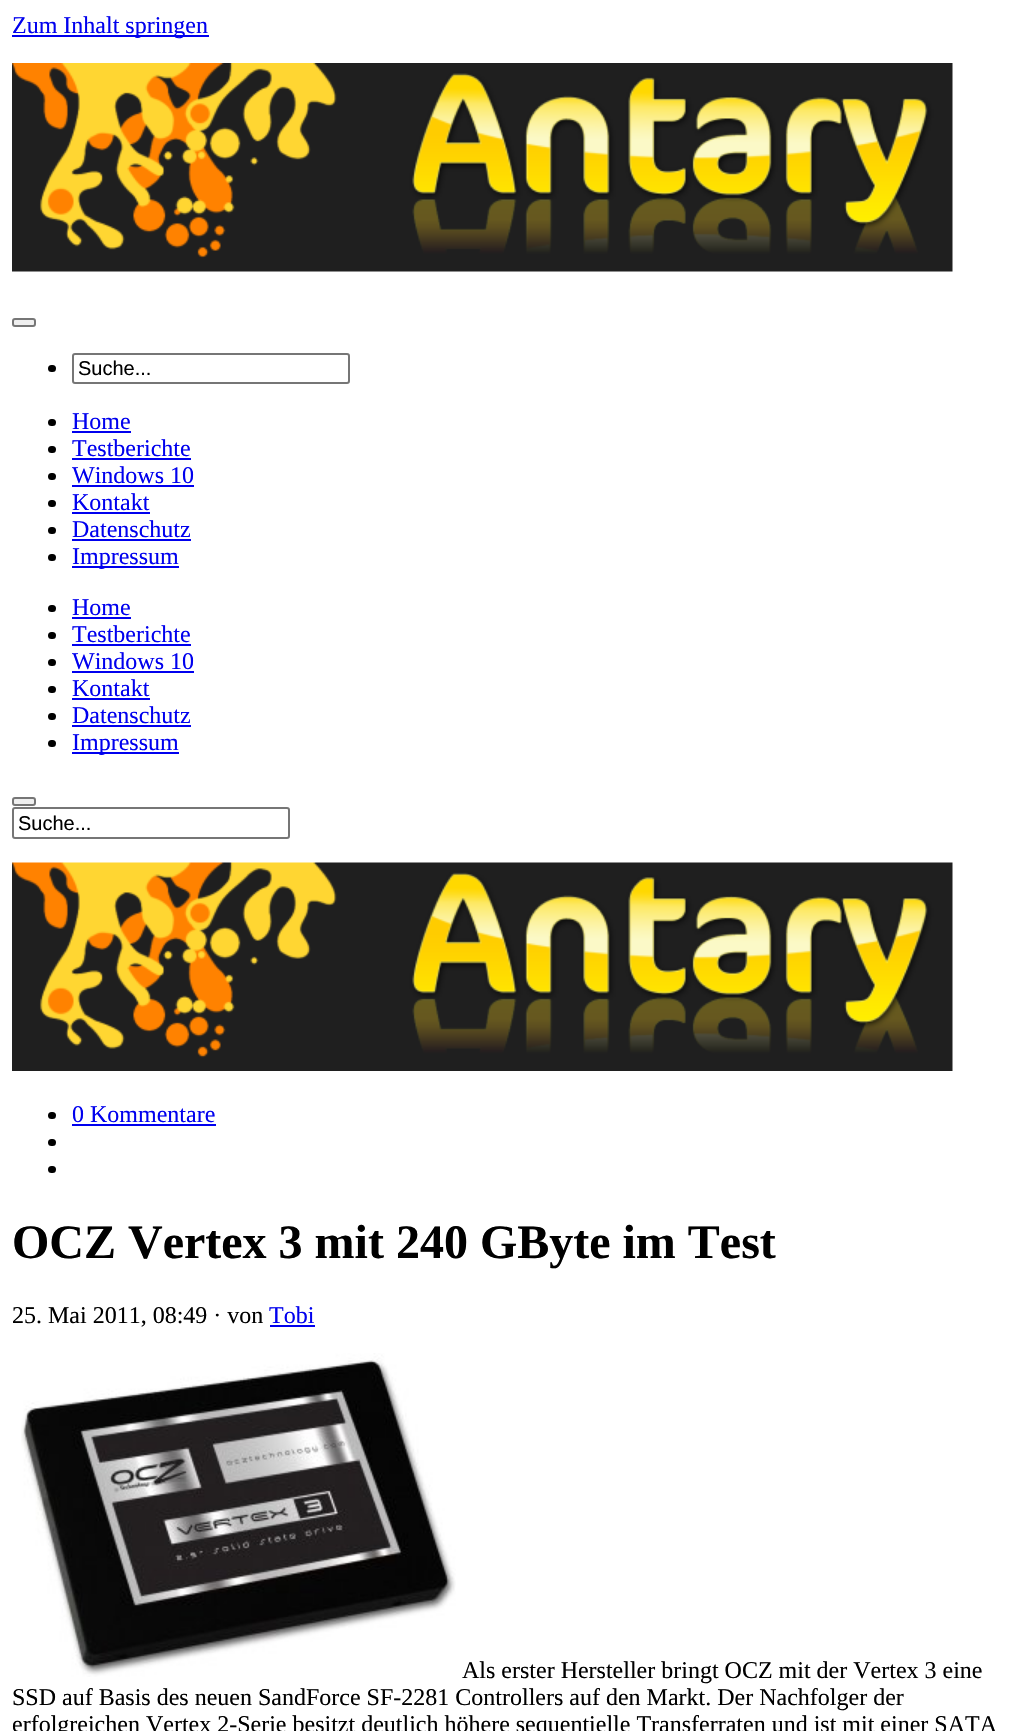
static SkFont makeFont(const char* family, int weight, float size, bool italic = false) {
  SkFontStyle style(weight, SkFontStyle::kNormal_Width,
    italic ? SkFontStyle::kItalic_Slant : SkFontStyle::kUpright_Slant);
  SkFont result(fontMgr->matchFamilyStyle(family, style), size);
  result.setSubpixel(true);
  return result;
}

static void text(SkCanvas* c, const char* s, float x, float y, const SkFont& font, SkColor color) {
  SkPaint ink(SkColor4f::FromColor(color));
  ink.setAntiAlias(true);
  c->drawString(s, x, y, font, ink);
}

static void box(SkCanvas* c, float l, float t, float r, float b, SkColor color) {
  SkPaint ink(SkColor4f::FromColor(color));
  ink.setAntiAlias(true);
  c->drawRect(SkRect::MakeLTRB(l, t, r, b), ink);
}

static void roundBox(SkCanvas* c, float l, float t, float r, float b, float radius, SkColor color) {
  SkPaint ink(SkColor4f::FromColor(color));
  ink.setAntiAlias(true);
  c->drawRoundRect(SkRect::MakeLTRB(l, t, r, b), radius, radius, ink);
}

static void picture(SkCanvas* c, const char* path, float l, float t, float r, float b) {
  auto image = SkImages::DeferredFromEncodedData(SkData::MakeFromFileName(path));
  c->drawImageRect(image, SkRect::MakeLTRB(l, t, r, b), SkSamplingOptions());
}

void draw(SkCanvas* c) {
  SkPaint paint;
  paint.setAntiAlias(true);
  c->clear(0xffffffff);
  box(c, 12, 35, 209, 37, 0xff0000ee);
  SkFont face1 = makeFont("Liberation Serif", 400, 24);
  text(c, "Zum Inhalt springen", 12, 33, face1, 0xff0000ee);
  picture(c, "img_01.png", 12, 63, 953, 272);
  paint.setColor(0xffefefef);
  c->drawRoundRect(SkRect::MakeLTRB(13, 319, 35, 326), 2, 2, paint);
  paint.setStyle(SkPaint::kStroke_Style);
  paint.setStrokeWidth(2);
  paint.setColor(0xff767676);
  c->drawRoundRect(SkRect::MakeLTRB(13, 319, 35, 326), 2, 2, paint);
  roundBox(c, 48, 365, 56, 372, 3.5f, 0xff000000);
  c->drawRoundRect(SkRect::MakeLTRB(73, 354, 349, 383), 2, 2, paint);
  SkFont face2 = makeFont("Liberation Sans", 400, 20);
  text(c, "Suche...", 78, 375, face2, 0xff000000);
  roundBox(c, 48, 419, 56, 426, 3.5f, 0xff000000);
  text(c, "Home", 72, 429, face1, 0xff0000ee);
  box(c, 72, 431, 131, 433, 0xff0000ee);
  roundBox(c, 48, 446, 56, 453, 3.5f, 0xff000000);
  text(c, "Testberichte", 72, 456, face1, 0xff0000ee);
  box(c, 72, 458, 191, 460, 0xff0000ee);
  roundBox(c, 48, 473, 56, 480, 3.5f, 0xff000000);
  text(c, "Windows 10", 72, 483, face1, 0xff0000ee);
  box(c, 72, 485, 194, 487, 0xff0000ee);
  roundBox(c, 48, 500, 56, 507, 3.5f, 0xff000000);
  text(c, "Kontakt", 72, 510, face1, 0xff0000ee);
  box(c, 72, 512, 150, 514, 0xff0000ee);
  roundBox(c, 48, 527, 56, 534, 3.5f, 0xff000000);
  text(c, "Datenschutz", 72, 537, face1, 0xff0000ee);
  box(c, 72, 539, 191, 541, 0xff0000ee);
  roundBox(c, 48, 554, 56, 561, 3.5f, 0xff000000);
  box(c, 72, 566, 179, 568, 0xff0000ee);
  text(c, "Impressum", 72, 564, face1, 0xff0000ee);
  roundBox(c, 48, 605, 56, 612, 3.5f, 0xff000000);
  text(c, "Home", 72, 615, face1, 0xff0000ee);
  box(c, 72, 617, 131, 619, 0xff0000ee);
  roundBox(c, 48, 632, 56, 639, 3.5f, 0xff000000);
  text(c, "Testberichte", 72, 642, face1, 0xff0000ee);
  box(c, 72, 644, 191, 646, 0xff0000ee);
  roundBox(c, 48, 659, 56, 666, 3.5f, 0xff000000);
  text(c, "Windows 10", 72, 669, face1, 0xff0000ee);
  box(c, 72, 671, 194, 673, 0xff0000ee);
  roundBox(c, 48, 686, 56, 693, 3.5f, 0xff000000);
  text(c, "Kontakt", 72, 696, face1, 0xff0000ee);
  box(c, 72, 698, 150, 700, 0xff0000ee);
  roundBox(c, 48, 713, 56, 720, 3.5f, 0xff000000);
  text(c, "Datenschutz", 72, 723, face1, 0xff0000ee);
  box(c, 72, 725, 191, 727, 0xff0000ee);
  roundBox(c, 48, 740, 56, 747, 3.5f, 0xff000000);
  box(c, 72, 752, 179, 754, 0xff0000ee);
  text(c, "Impressum", 72, 750, face1, 0xff0000ee);
  paint.setStyle(SkPaint::kFill_Style);
  paint.setColor(0xffefefef);
  c->drawRoundRect(SkRect::MakeLTRB(13, 798, 35, 805), 2, 2, paint);
  paint.setStyle(SkPaint::kStroke_Style);
  paint.setColor(0xff767676);
  c->drawRoundRect(SkRect::MakeLTRB(13, 798, 35, 805), 2, 2, paint);
  c->drawRoundRect(SkRect::MakeLTRB(13, 808, 289, 838), 2, 2, paint);
  text(c, "Suche...", 18, 830, face2, 0xff000000);
  picture(c, "img_02.png", 12, 862, 953, 1071);
  roundBox(c, 48, 1112, 56, 1119, 3.5f, 0xff000000);
  text(c, "0 Kommentare", 72, 1122, face1, 0xff0000ee);
  box(c, 72, 1124, 216, 1126, 0xff0000ee);
  roundBox(c, 48, 1139, 56, 1146, 3.5f, 0xff000000);
  roundBox(c, 48, 1166, 56, 1173, 3.5f, 0xff000000);
  SkFont face3 = makeFont("Liberation Serif", 700, 48);
  text(c, "OCZ Vertex 3 mit 240 GByte im Test", 12, 1258, face3, 0xff000000);
  text(c, "25. Mai 2011, 08:49 · von", 12, 1323, face1, 0xff000000);
  text(c, "Tobi", 269, 1323, face1, 0xff0000ee);
  box(c, 270, 1325, 315, 1327, 0xff0000ee);
  picture(c, "img_03.png", 21, 1353, 456, 1677);
  text(c, "Als erster Hersteller bringt OCZ mit der Vertex 3 eine", 462, 1678, face1, 0xff000000);
  text(c, "SSD auf Basis des neuen SandForce SF-2281 Controllers auf den Markt. Der Nachfolger der", 12, 1705, face1, 0xff000000);
  text(c, "erfolgreichen Vertex 2-Serie besitzt deutlich höhere sequentielle Transferraten und ist mit einer SATA", 12, 1732, face1, 0xff000000);
}
